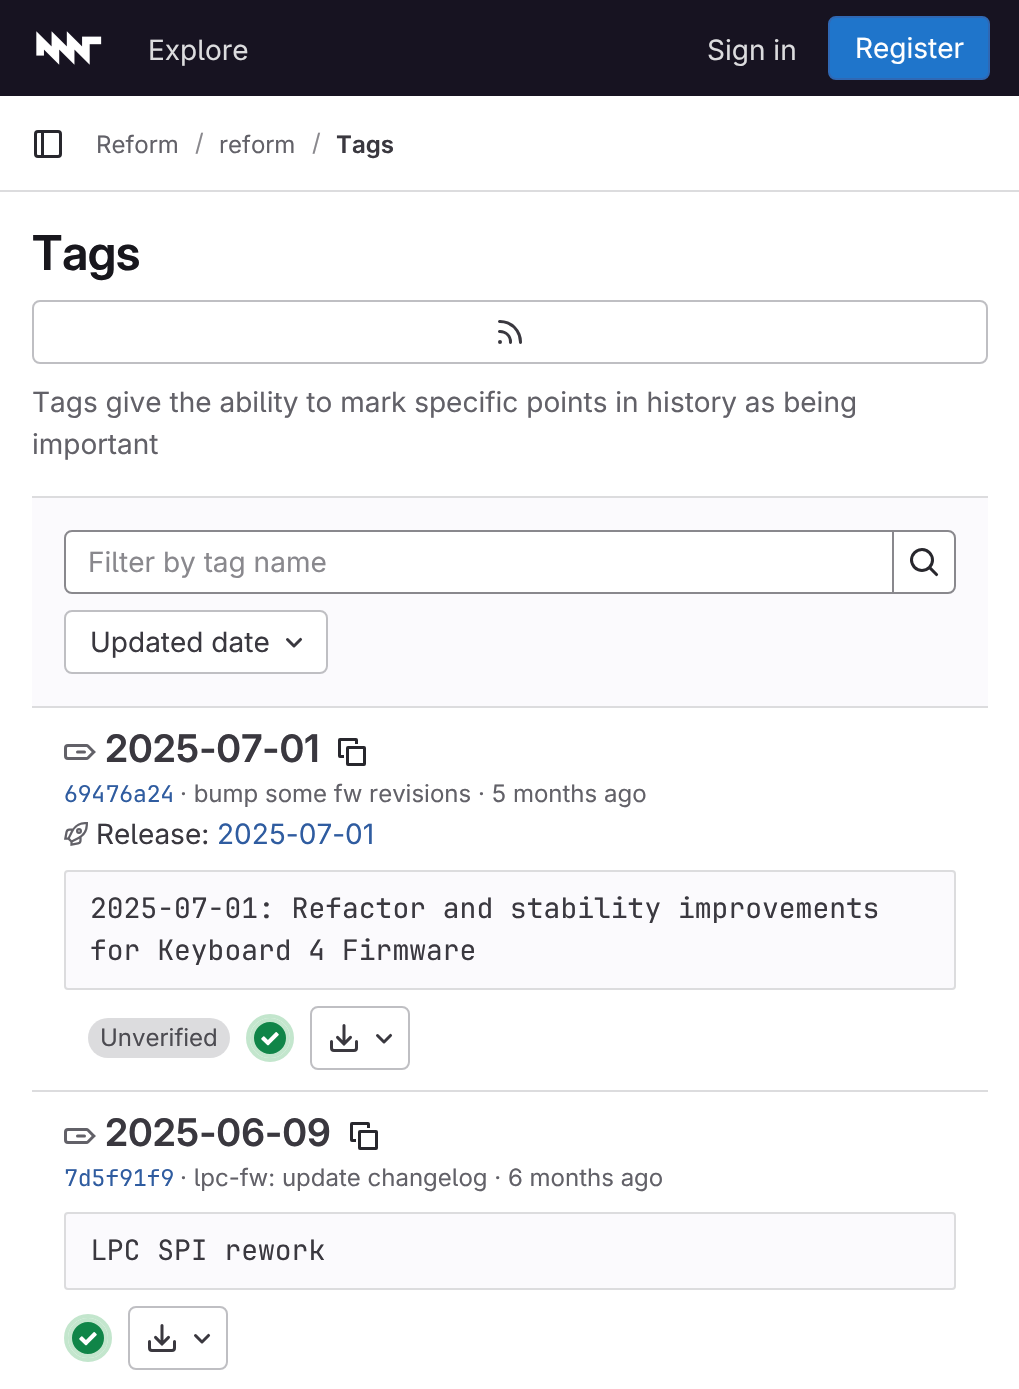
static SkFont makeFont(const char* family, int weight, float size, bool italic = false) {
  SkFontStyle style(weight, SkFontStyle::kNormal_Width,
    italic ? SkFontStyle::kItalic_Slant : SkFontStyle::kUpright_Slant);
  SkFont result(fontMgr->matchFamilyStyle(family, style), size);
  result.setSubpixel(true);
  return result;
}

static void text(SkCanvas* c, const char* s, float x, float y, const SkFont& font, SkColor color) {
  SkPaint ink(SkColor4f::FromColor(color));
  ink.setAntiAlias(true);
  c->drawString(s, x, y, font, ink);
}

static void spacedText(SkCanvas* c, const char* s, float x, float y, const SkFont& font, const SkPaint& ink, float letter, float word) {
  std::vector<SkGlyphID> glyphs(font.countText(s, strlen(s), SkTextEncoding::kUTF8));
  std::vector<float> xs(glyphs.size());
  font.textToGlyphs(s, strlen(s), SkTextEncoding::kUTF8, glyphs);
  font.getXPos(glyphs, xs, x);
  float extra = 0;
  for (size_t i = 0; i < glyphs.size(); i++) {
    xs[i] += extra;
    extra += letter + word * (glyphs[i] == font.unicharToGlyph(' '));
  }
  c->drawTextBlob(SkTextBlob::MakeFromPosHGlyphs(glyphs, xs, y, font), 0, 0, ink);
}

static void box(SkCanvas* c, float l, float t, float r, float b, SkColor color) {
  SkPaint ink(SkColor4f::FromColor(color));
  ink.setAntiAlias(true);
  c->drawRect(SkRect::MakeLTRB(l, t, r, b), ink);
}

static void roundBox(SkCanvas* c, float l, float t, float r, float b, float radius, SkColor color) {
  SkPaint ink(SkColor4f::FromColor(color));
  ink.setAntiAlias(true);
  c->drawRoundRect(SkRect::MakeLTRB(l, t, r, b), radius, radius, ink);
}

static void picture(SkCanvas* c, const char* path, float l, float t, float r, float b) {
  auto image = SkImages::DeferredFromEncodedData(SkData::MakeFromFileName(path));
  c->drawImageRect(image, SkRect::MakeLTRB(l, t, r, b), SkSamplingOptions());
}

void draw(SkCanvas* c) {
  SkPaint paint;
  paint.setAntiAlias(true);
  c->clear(0xffffffff);
  box(c, 0, 0, 1019, 96, 0xff171321);
  picture(c, "img_01.png", 36, 31, 102, 65);
  SkFont face1 = makeFont("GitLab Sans", 400, 28);
  text(c, "Explore", 148, 60, face1, 0xffdcdcde);
  text(c, "Sign in", 707, 60, face1, 0xffdcdcde);
  paint.setColor(0xff1f75cb);
  c->drawRoundRect(SkRect::MakeLTRB(829, 17, 989, 79), 7, 7, paint);
  paint.setStyle(SkPaint::kStroke_Style);
  paint.setStrokeWidth(2);
  paint.setColor(0xff2f68b4);
  c->drawRoundRect(SkRect::MakeLTRB(829, 17, 989, 79), 7, 7, paint);
  text(c, "Register", 855, 58, face1, 0xffffffff);
  box(c, 0, 190, 1019, 192, 0xffdcdcde);
  picture(c, "img_02.png", 34, 130, 62, 158);
  SkFont face2 = makeFont("GitLab Sans", 400, 24);
  text(c, "Reform", 96, 153, face2, 0xff626168);
  text(c, "/", 195, 151, face2, 0xff89888d);
  text(c, "reform", 219, 153, face2, 0xff626168);
  text(c, "/", 312, 151, face2, 0xff89888d);
  SkFont face3 = makeFont("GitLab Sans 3", 600, 24);
  text(c, "Tags", 336, 153, face3, 0xff3a383f);
  SkFont face4 = makeFont("GitLab Sans", 600, 48);
  paint.setStyle(SkPaint::kFill_Style);
  paint.setColor(0xff18171d);
  spacedText(c, "Tags", 32, 270, face4, paint, -0.5f, 0);
  paint.setStyle(SkPaint::kStroke_Style);
  paint.setColor(0xffbfbfc3);
  c->drawRoundRect(SkRect::MakeLTRB(33, 301, 987, 363), 7, 7, paint);
  picture(c, "img_03.png", 498, 320, 522, 344);
  text(c, "Tags give the ability to mark specific points in history as being", 32, 412, face1, 0xff626168);
  text(c, "important", 32, 454, face1, 0xff626168);
  box(c, 32, 498, 988, 706, 0xfffbfafd);
  box(c, 32, 496, 988, 498, 0xffdcdcde);
  box(c, 32, 706, 988, 708, 0xffdcdcde);
  paint.setStyle(SkPaint::kFill_Style);
  paint.setColor(0xffffffff);
  c->drawPath(SkPathBuilder().moveTo(72, 531).lineTo(893, 531).lineTo(893, 593).lineTo(72, 593).cubicTo(68, 593, 65, 590, 65, 586).lineTo(65, 538).cubicTo(65, 534, 68, 531, 72, 531).close().detach(), paint);
  paint.setStyle(SkPaint::kStroke_Style);
  paint.setColor(0xff89888d);
  c->drawPath(SkPathBuilder().moveTo(72, 531).lineTo(893, 531).lineTo(893, 593).lineTo(72, 593).cubicTo(68, 593, 65, 590, 65, 586).lineTo(65, 538).cubicTo(65, 534, 68, 531, 72, 531).close().detach(), paint);
  text(c, "Filter by tag name", 88, 572, face1, 0xff89888d);
  paint.setStyle(SkPaint::kFill_Style);
  paint.setColor(0xffffffff);
  c->drawPath(SkPathBuilder().moveTo(893, 531).lineTo(948, 531).cubicTo(952, 531, 955, 534, 955, 538).lineTo(955, 586).cubicTo(955, 590, 952, 593, 948, 593).lineTo(893, 593).close().detach(), paint);
  paint.setStyle(SkPaint::kStroke_Style);
  paint.setColor(0xff89888d);
  c->drawPath(SkPathBuilder().moveTo(893, 531).lineTo(948, 531).cubicTo(952, 531, 955, 534, 955, 538).lineTo(955, 586).cubicTo(955, 590, 952, 593, 948, 593).lineTo(893, 593).close().detach(), paint);
  picture(c, "img_04.png", 910, 548, 939, 577);
  paint.setStyle(SkPaint::kFill_Style);
  paint.setColor(0xffffffff);
  c->drawRoundRect(SkRect::MakeLTRB(65, 611, 327, 673), 7, 7, paint);
  paint.setStyle(SkPaint::kStroke_Style);
  paint.setColor(0xffbfbfc3);
  c->drawRoundRect(SkRect::MakeLTRB(65, 611, 327, 673), 7, 7, paint);
  text(c, "Updated date", 90, 652, face1, 0xff3a383f);
  picture(c, "img_05.png", 286, 637, 303, 648);
  box(c, 32, 1090, 988, 1092, 0xffdcdcde);
  picture(c, "img_06.png", 64, 744, 96, 760);
  SkFont face5 = makeFont("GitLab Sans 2", 600, 38);
  text(c, "2025-07-01", 105, 762, face5, 0xff3a383f);
  picture(c, "img_07.png", 338, 738, 366, 766);
  SkFont face6 = makeFont("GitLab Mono", 400, 23);
  text(c, "69476a24", 64, 802, face6, 0xff2f5ca0);
  text(c, "· bump some fw revisions · 5 months ago", 180, 802, face2, 0xff626168);
  picture(c, "img_08.png", 64, 822, 88, 846);
  text(c, "Release:", 96, 844, face1, 0xff3a383f);
  text(c, "2025-07-01", 217, 844, face1, 0xff2f5ca0);
  paint.setStyle(SkPaint::kFill_Style);
  paint.setColor(0xfffbfafd);
  c->drawRoundRect(SkRect::MakeLTRB(65, 871, 955, 989), 3, 3, paint);
  paint.setStyle(SkPaint::kStroke_Style);
  paint.setColor(0xffdcdcde);
  c->drawRoundRect(SkRect::MakeLTRB(65, 871, 955, 989), 3, 3, paint);
  SkFont face7 = makeFont("GitLab Mono", 400, 28);
  text(c, "2025-07-01: Refactor and stability improvements", 90, 918, face7, 0xff3a383f);
  text(c, "for Keyboard 4 Firmware", 90, 960, face7, 0xff3a383f);
  roundBox(c, 88, 1018, 230, 1058, 20, 0xffdcdcde);
  text(c, "Unverified", 100, 1046, face2, 0xff4c4b51);
  paint.setStrokeWidth(4);
  paint.setColor(0xffc3e6cd);
  c->drawCircle(270, 1038, 22, paint);
  paint.setStyle(SkPaint::kFill_Style);
  paint.setColor(0xff108548);
  c->drawCircle(270, 1038, 18, paint);
  paint.setStyle(SkPaint::kStroke_Style);
  paint.setColor(0xffc3e6cd);
  c->drawCircle(270, 1038, 18, paint);
  picture(c, "img_09.png", 261, 1032, 279, 1046);
  paint.setStrokeWidth(2);
  paint.setColor(0xffbfbfc3);
  c->drawRoundRect(SkRect::MakeLTRB(311, 1007, 409, 1069), 7, 7, paint);
  picture(c, "img_10.png", 330, 1024, 358, 1052);
  picture(c, "img_05.png", 376, 1033, 393, 1044);
  picture(c, "img_06.png", 64, 1128, 96, 1144);
  text(c, "2025-06-09", 105, 1146, face5, 0xff3a383f);
  picture(c, "img_07.png", 350, 1122, 378, 1150);
  text(c, "7d5f91f9", 64, 1186, face6, 0xff2f5ca0);
  text(c, "· lpc-fw: update changelog · 6 months ago", 180, 1186, face2, 0xff626168);
  paint.setStyle(SkPaint::kFill_Style);
  paint.setColor(0xfffbfafd);
  c->drawRoundRect(SkRect::MakeLTRB(65, 1213, 955, 1289), 3, 3, paint);
  paint.setStyle(SkPaint::kStroke_Style);
  paint.setColor(0xffdcdcde);
  c->drawRoundRect(SkRect::MakeLTRB(65, 1213, 955, 1289), 3, 3, paint);
  text(c, "LPC SPI rework", 90, 1260, face7, 0xff3a383f);
  paint.setStrokeWidth(4);
  paint.setColor(0xffc3e6cd);
  c->drawCircle(88, 1338, 22, paint);
  paint.setStyle(SkPaint::kFill_Style);
  paint.setColor(0xff108548);
  c->drawCircle(88, 1338, 18, paint);
  paint.setStyle(SkPaint::kStroke_Style);
  paint.setColor(0xffc3e6cd);
  c->drawCircle(88, 1338, 18, paint);
  picture(c, "img_09.png", 79, 1332, 97, 1346);
  paint.setStrokeWidth(2);
  paint.setColor(0xffbfbfc3);
  c->drawRoundRect(SkRect::MakeLTRB(129, 1307, 227, 1369), 7, 7, paint);
  picture(c, "img_10.png", 148, 1324, 176, 1352);
  picture(c, "img_05.png", 194, 1333, 211, 1344);
}
